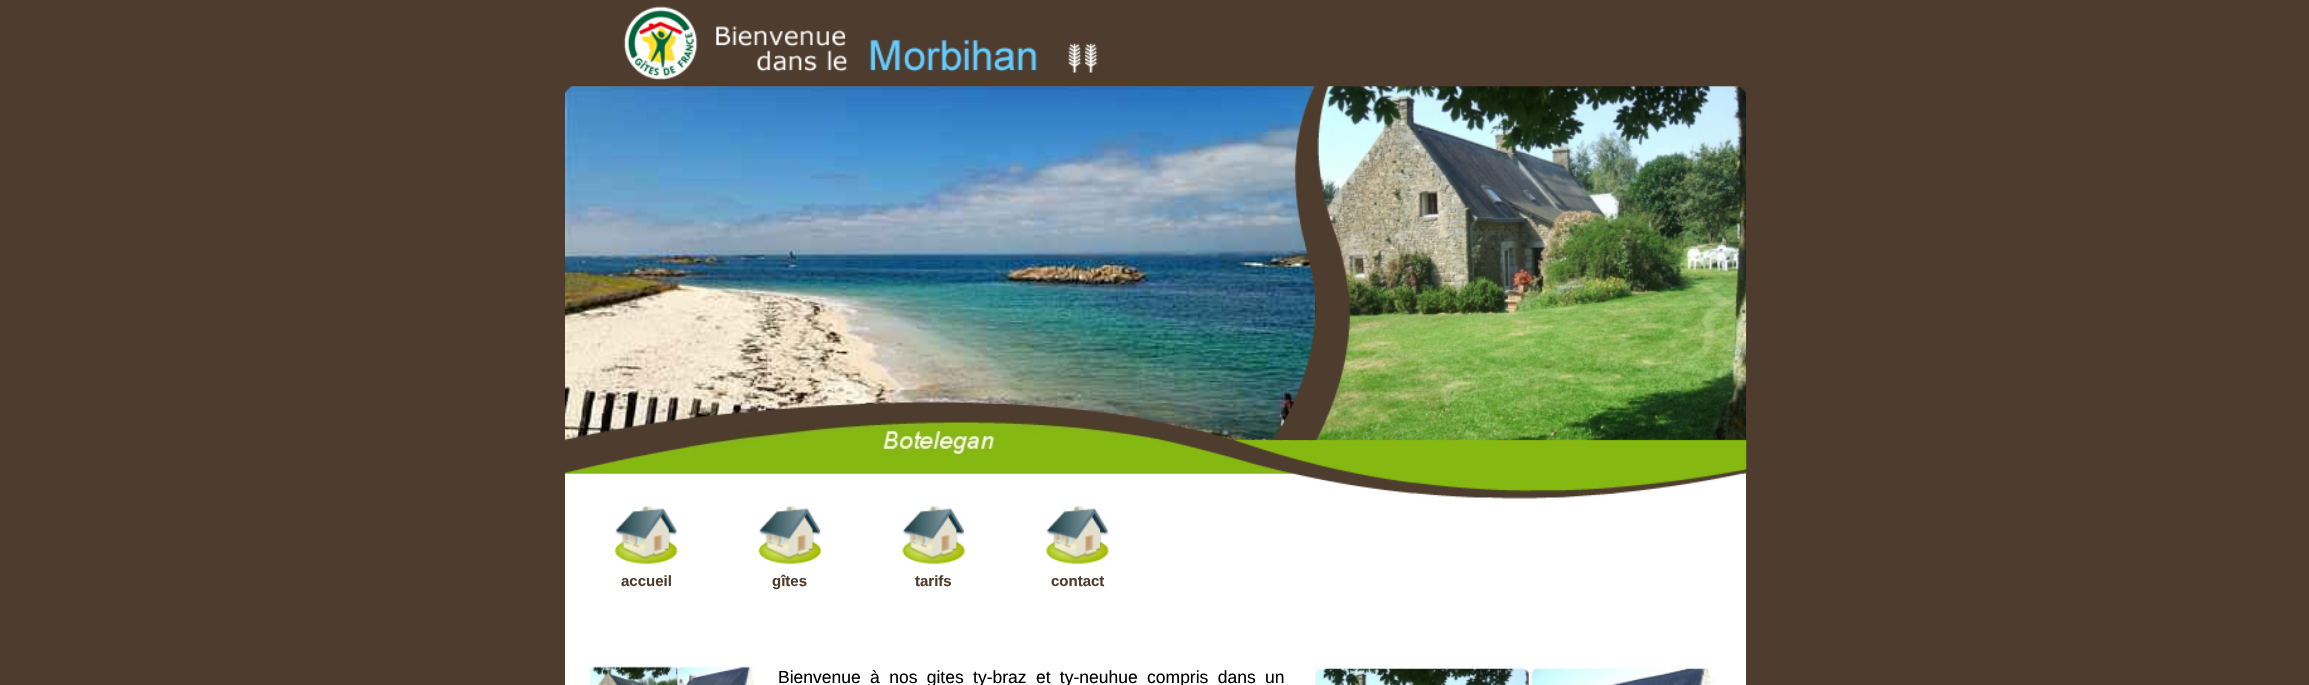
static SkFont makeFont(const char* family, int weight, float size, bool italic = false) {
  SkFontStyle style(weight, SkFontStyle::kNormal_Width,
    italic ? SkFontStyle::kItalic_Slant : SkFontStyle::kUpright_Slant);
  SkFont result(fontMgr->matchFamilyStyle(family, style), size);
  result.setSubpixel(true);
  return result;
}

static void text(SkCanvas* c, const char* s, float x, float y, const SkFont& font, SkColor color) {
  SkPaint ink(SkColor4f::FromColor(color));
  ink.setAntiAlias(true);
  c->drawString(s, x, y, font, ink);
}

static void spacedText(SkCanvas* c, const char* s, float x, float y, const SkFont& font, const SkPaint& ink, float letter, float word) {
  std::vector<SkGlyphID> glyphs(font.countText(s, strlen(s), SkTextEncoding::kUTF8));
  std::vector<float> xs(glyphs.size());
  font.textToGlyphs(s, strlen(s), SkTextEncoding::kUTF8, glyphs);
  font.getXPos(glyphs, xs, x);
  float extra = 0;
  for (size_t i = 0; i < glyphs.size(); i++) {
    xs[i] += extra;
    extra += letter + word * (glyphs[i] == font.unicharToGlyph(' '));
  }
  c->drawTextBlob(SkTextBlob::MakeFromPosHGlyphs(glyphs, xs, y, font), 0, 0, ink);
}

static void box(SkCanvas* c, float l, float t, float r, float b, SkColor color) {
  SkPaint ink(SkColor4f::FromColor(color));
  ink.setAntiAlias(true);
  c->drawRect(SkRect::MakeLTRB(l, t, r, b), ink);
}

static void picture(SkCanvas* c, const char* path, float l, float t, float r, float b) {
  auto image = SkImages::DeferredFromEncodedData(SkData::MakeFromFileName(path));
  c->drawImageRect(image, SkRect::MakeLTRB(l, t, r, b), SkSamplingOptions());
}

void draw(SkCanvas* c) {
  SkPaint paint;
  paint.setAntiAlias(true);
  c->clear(0xff4e3d2e);
  picture(c, "img_01.png", 623, 6, 698, 80);
  picture(c, "img_02.png", 716, 26, 1037, 72);
  picture(c, "img_03.png", 1068, 43, 1082, 73);
  picture(c, "img_04.png", 1085, 43, 1098, 73);
  picture(c, "img_05.png", 565, 85, 1315, 441);
  picture(c, "img_08.png", 1315, 85, 1747, 460);
  picture(c, "img_06.png", 565, 85, 1746, 94);
  box(c, 565, 473, 1746, 685, 0xffffffff);
  picture(c, "img_09.png", 565, 401, 1747, 499);
  picture(c, "img_07.png", 1273, 86, 1351, 440);
  picture(c, "img_10.png", 690, 420, 1129, 456);
  picture(c, "img_11.png", 614, 506, 678, 564);
  SkFont face1 = makeFont("Liberation Sans", 700, 15);
  text(c, "accueil", 621, 586, face1, 0xff4e3d2e);
  picture(c, "img_12.png", 758, 506, 822, 564);
  text(c, "gîtes", 772, 586, face1, 0xff4e3d2e);
  picture(c, "img_13.png", 902, 506, 966, 564);
  text(c, "tarifs", 915, 586, face1, 0xff4e3d2e);
  picture(c, "img_14.png", 1046, 506, 1109, 564);
  text(c, "contact", 1051, 586, face1, 0xff4e3d2e);
  picture(c, "img_15.png", 590, 666, 755, 685);
  SkFont face2 = makeFont("Liberation Sans", 400, 17.5f);
  paint.setColor(0xff000000);
  spacedText(c, "Bienvenue à nos gites ty-braz et ty-neuhue compris dans un", 778, 683, face2, paint, 0, 4.5f);
  picture(c, "img_16.png", 1315, 666, 1715, 685);
}
